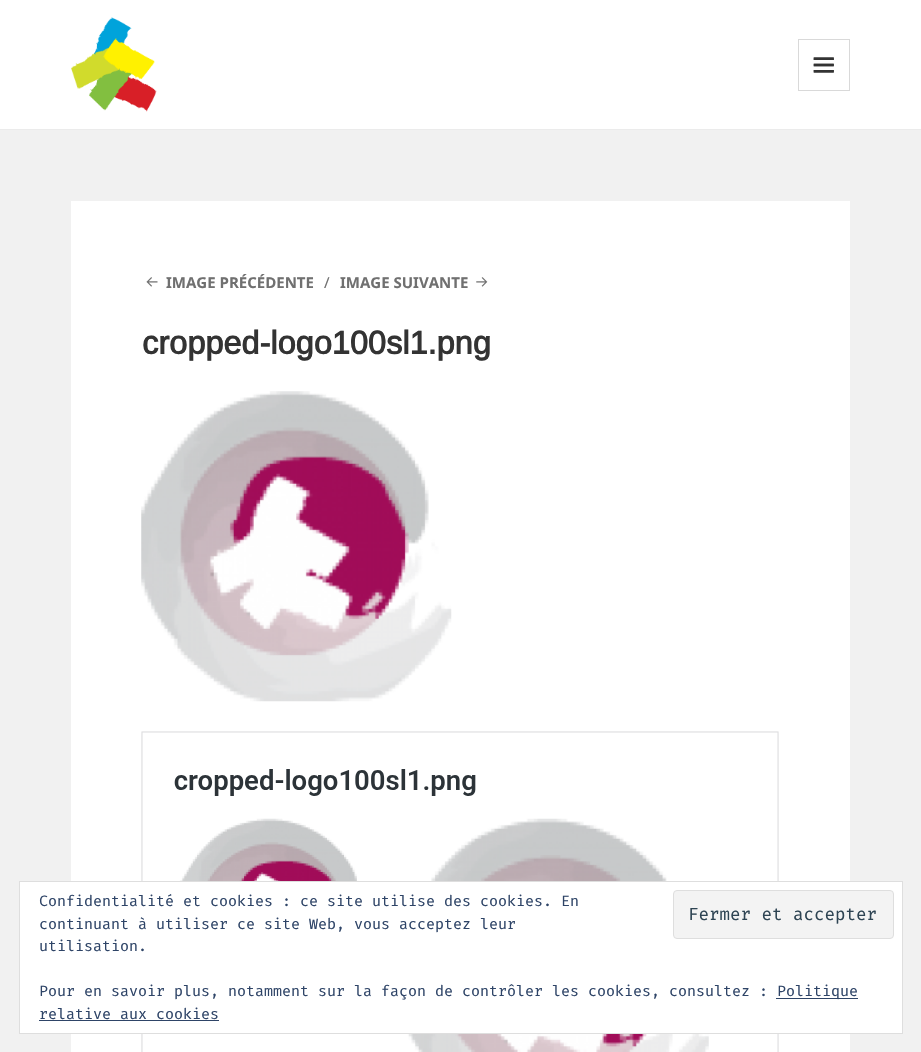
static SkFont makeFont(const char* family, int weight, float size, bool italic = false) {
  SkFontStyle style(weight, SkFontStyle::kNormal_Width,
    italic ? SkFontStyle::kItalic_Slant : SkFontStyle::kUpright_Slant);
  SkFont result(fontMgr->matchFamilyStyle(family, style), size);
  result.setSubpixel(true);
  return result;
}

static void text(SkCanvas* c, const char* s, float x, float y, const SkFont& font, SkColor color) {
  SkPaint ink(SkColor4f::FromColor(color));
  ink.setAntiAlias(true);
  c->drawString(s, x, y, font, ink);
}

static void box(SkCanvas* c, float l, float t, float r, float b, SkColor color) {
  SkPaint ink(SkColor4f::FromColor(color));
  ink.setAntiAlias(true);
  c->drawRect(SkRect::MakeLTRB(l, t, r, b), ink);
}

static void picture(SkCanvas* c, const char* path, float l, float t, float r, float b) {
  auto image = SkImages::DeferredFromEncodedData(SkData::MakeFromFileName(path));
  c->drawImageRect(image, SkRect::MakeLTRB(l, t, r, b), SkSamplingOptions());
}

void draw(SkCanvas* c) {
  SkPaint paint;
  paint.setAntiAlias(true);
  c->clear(0xfff1f1f1);
  box(c, 0, 0, 921, 129, 0xffffffff);
  box(c, 0, 129, 921, 130, 0xffebebeb);
  picture(c, "img_01.png", 71, 17, 157, 112);
  picture(c, "img_03.png", 813, 57, 834, 73);
  paint.setStyle(SkPaint::kStroke_Style);
  paint.setStrokeWidth(1);
  paint.setColor(0xffd9d9d9);
  c->drawRect(SkRect::MakeLTRB(798.5f, 39.5f, 849.5f, 90.5f), paint);
  picture(c, "img_02.png", 813, 57, 834, 73);
  box(c, 71, 201, 850, 1052, 0xffffffff);
  picture(c, "img_04.png", 146, 277, 158, 287);
  SkFont face1 = makeFont("Noto Sans", 700, 15);
  text(c, "IMAGE PRÉCÉDENTE", 166, 288, face1, 0xff707070);
  SkFont face2 = makeFont("Noto Sans", 400, 15);
  text(c, "∕", 324, 288, face2, 0xff707070);
  text(c, "IMAGE SUIVANTE", 340, 288, face1, 0xff707070);
  picture(c, "img_05.png", 476, 277, 488, 287);
  SkFont face3 = makeFont("Arimo", 700, 32.5f);
  text(c, "cropped-logo100sl1.png", 142, 354, face3, 0xff333333);
  picture(c, "img_06.png", 141, 391, 452, 702);
  picture(c, "img_07.png", 141, 731, 779, 1052);
  paint.setStyle(SkPaint::kFill_Style);
  paint.setColor(0xffffffff);
  c->drawRect(SkRect::MakeLTRB(19.5f, 881.5f, 902.5f, 1033.5f), paint);
  paint.setStyle(SkPaint::kStroke_Style);
  paint.setColor(0xffdedede);
  c->drawRect(SkRect::MakeLTRB(19.5f, 881.5f, 902.5f, 1033.5f), paint);
  SkFont face4 = makeFont("Fira Mono", 400, 15);
  text(c, "Confidentialité et cookies : ce site utilise des cookies. En", 39, 906, face4, 0xff2e4467);
  text(c, "continuant à utiliser ce site Web, vous acceptez leur", 39, 929, face4, 0xff2e4467);
  paint.setStyle(SkPaint::kFill_Style);
  paint.setColor(0xfff3f3f3);
  c->drawRoundRect(SkRect::MakeLTRB(673.5f, 890.5f, 893.5f, 938.5f), 3.5f, 3.5f, paint);
  paint.setStyle(SkPaint::kStroke_Style);
  paint.setColor(0xffdedede);
  c->drawRoundRect(SkRect::MakeLTRB(673.5f, 890.5f, 893.5f, 938.5f), 3.5f, 3.5f, paint);
  SkFont face5 = makeFont("Fira Mono", 400, 17.5f);
  text(c, "Fermer et accepter", 688, 920, face5, 0xff2e4453);
  text(c, "utilisation.", 39, 951, face4, 0xff2e4467);
  text(c, "Pour en savoir plus, notamment sur la façon de contrôler les cookies, consultez :", 39, 996, face4, 0xff2e4467);
  box(c, 776, 998, 858, 999, 0xff2e4467);
  text(c, "Politique", 777, 996, face4, 0xff2e4467);
  text(c, "relative aux cookies", 39, 1019, face4, 0xff2e4467);
  box(c, 39, 1020, 219, 1021, 0xff2e4467);
}
